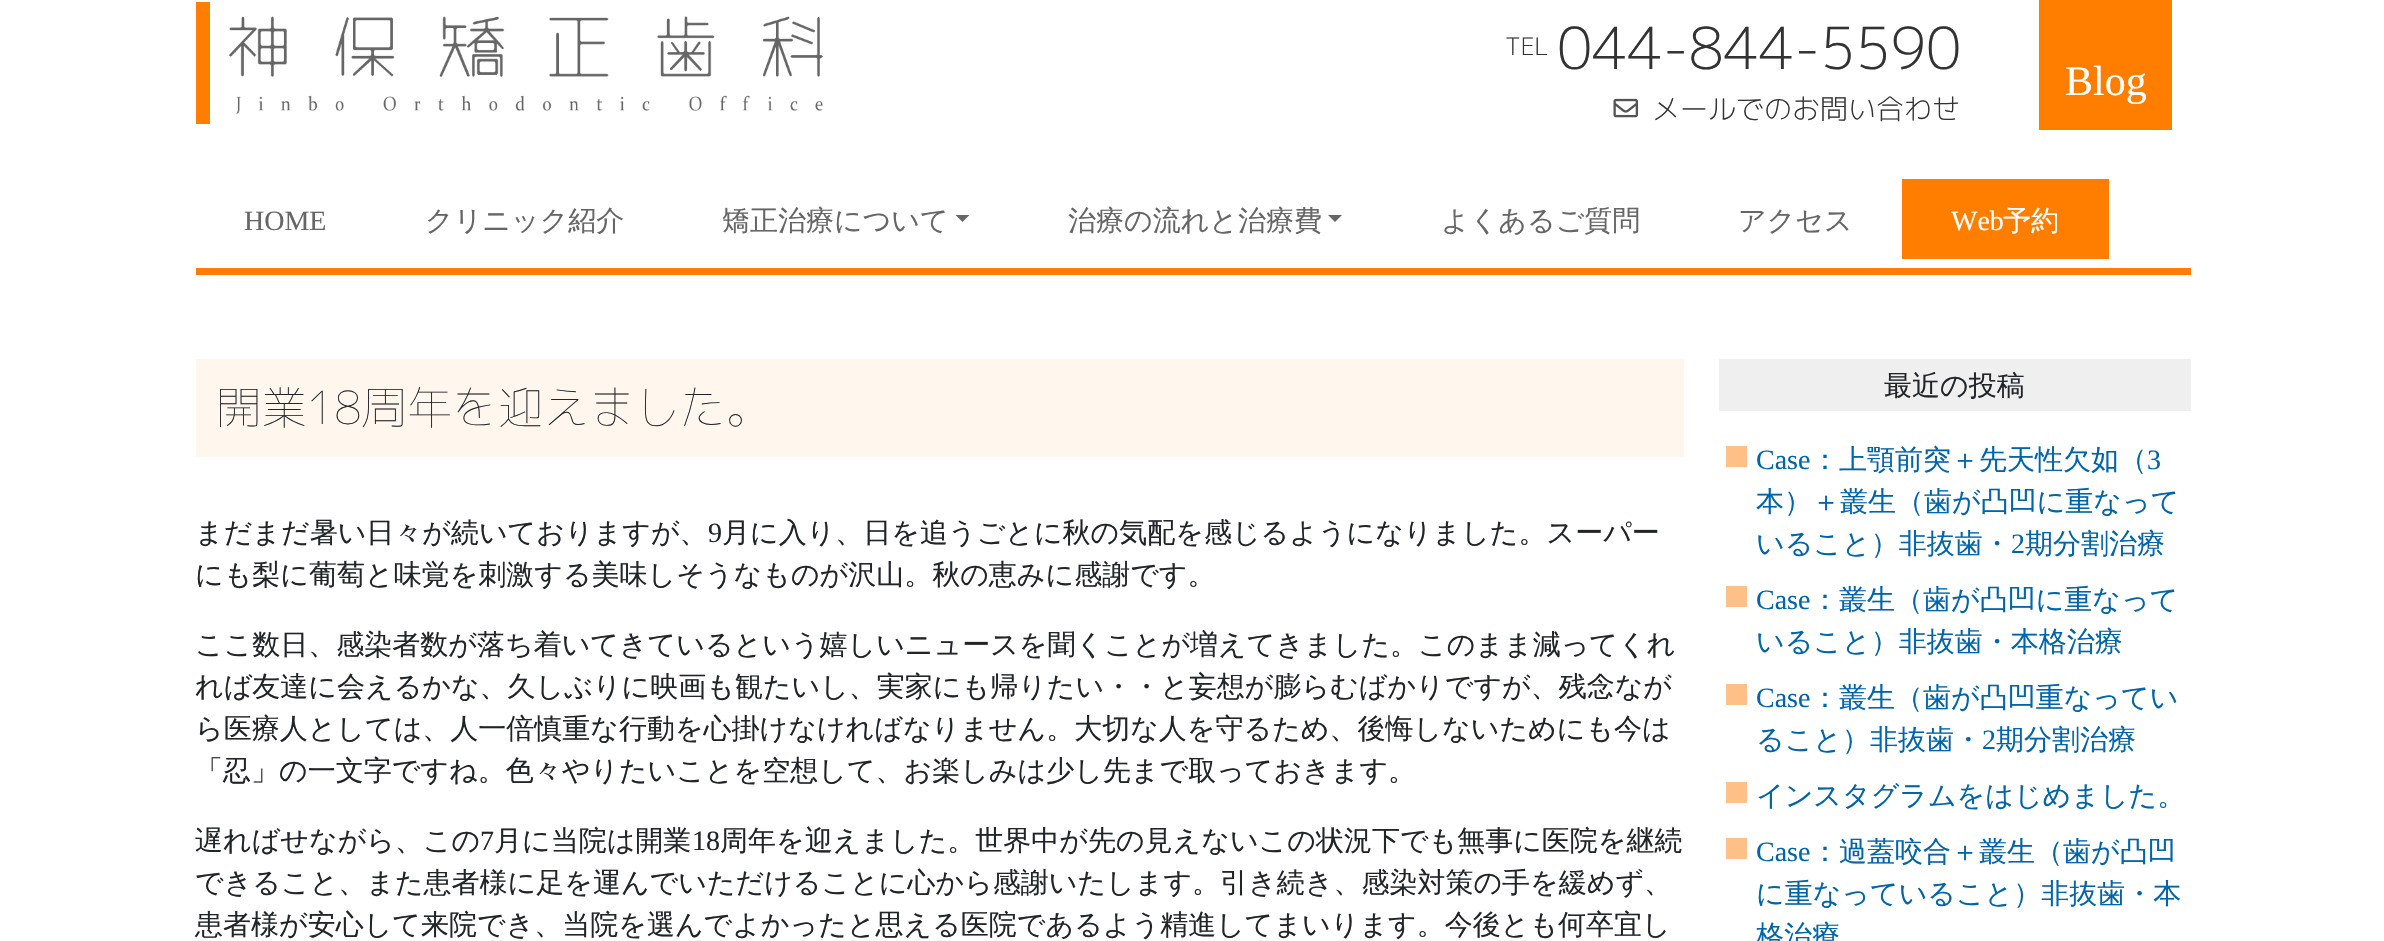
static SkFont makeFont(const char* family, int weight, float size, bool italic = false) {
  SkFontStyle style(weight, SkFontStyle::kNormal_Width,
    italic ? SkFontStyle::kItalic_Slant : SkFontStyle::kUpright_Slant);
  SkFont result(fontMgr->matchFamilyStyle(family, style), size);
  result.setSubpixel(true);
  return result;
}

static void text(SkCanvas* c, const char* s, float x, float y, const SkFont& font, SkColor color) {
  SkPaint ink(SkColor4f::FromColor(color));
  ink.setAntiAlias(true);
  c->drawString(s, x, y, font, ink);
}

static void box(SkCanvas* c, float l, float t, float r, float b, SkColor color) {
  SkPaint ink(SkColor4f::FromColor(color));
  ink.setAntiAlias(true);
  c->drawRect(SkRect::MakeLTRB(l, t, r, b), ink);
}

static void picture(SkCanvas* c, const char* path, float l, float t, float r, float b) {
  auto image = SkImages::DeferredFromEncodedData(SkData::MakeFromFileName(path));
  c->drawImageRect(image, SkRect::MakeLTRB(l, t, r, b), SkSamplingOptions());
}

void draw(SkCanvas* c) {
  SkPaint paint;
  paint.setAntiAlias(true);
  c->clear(0xffffffff);
  picture(c, "img_01.png", 229, 16, 823, 114);
  box(c, 196, 2, 210, 124, 0xffff7e00);
  SkFont face1 = makeFont("M PLUS 1p", 300, 24);
  text(c, "TEL", 1505, 55, face1, 0xff333333);
  SkFont face2 = makeFont("M PLUS 1p", 300, 57.75f);
  text(c, "044-844-5590", 1557, 69, face2, 0xff333333);
  picture(c, "img_02.png", 1613, 98, 1638, 118);
  SkFont face3 = makeFont("M PLUS 1p", 300, 28);
  text(c, "メールでのお問い合わせ", 1652, 119, face3, 0xff333333);
  box(c, 2039, 0, 2172, 130, 0xffff7e00);
  SkFont face4 = makeFont("Liberation Serif", 400, 42);
  text(c, "Blog", 2065, 95, face4, 0xffffffff);
  box(c, 196, 268, 2191, 275, 0xffff7e00);
  SkFont face5 = makeFont("Liberation Serif", 400, 28);
  text(c, "HOME", 244, 230, face5, 0xff666666);
  SkFont face6 = makeFont("WenQuanYi Zen Hei", 500, 28);
  text(c, "クリニック紹介", 425, 230, face6, 0xff666666);
  text(c, "矯正治療について", 722, 230, face6, 0xff666666);
  paint.setColor(0xff666666);
  c->drawPath(SkPathBuilder().moveTo(955.5f, 215).lineTo(969.5f, 215).lineTo(962.5f, 222).close().detach(), paint);
  text(c, "治療の流れと治療費", 1068, 230, face6, 0xff666666);
  c->drawPath(SkPathBuilder().moveTo(1328, 215).lineTo(1342, 215).lineTo(1335, 222).close().detach(), paint);
  text(c, "よくあるご質問", 1441, 230, face6, 0xff666666);
  text(c, "アクセス", 1738, 230, face6, 0xff666666);
  box(c, 1902, 179, 2109, 259, 0xffff7e00);
  text(c, "Web", 1951, 230, face5, 0xffffffff);
  text(c, "予約", 2003, 230, face6, 0xffffffff);
  box(c, 196, 359, 1684, 457, 0xfffff7ee);
  SkFont face7 = makeFont("M PLUS 1p", 100, 45.5f);
  text(c, "開業18周年を迎えました。", 216, 424, face7, 0xff212529);
  text(c, "まだまだ暑い日々が続いておりますが、", 195, 542, face6, 0xff212529);
  text(c, "9", 708, 542, face5, 0xff212529);
  text(c, "月に入り、日を追うごとに秋の気配を感じるようになりました。スーパー", 722, 542, face6, 0xff212529);
  text(c, "にも梨に葡萄と味覚を刺激する美味しそうなものが沢山。秋の恵みに感謝です。", 195, 584, face6, 0xff212529);
  text(c, "ここ数日、感染者数が落ち着いてきているという嬉しいニュースを聞くことが増えてきました。このまま減ってくれ", 195, 654, face6, 0xff212529);
  text(c, "れば友達に会えるかな、久しぶりに映画も観たいし、実家にも帰りたい・・と妄想が膨らむばかりですが、残念なが", 195, 696, face6, 0xff212529);
  text(c, "ら医療人としては、人一倍慎重な行動を心掛けなければなりません。大切な人を守るため、後悔しないためにも今は", 195, 738, face6, 0xff212529);
  text(c, "「忍」の一文字ですね。色々やりたいことを空想して、お楽しみは少し先まで取っておきます。", 195, 780, face6, 0xff212529);
  text(c, "遅ればせながら、この", 195, 850, face6, 0xff212529);
  text(c, "7", 480, 850, face5, 0xff212529);
  text(c, "月に当院は開業", 494, 850, face6, 0xff212529);
  text(c, "18", 692, 850, face5, 0xff212529);
  text(c, "周年を迎えました。世界中が先の見えないこの状況下でも無事に医院を継続", 720, 850, face6, 0xff212529);
  text(c, "できること、また患者様に足を運んでいただけることに心から感謝いたします。引き続き、感染対策の手を緩めず、", 195, 892, face6, 0xff212529);
  text(c, "患者様が安心して来院でき、当院を選んでよかったと思える医院であるよう精進してまいります。今後とも何卒宜し", 195, 934, face6, 0xff212529);
  box(c, 1719, 359, 2191, 411, 0xffefefef);
  text(c, "最近の投稿", 1884, 395, face6, 0xff212529);
  box(c, 1726, 446, 1747, 467, 0xffffc088);
  text(c, "Case", 1756, 469, face5, 0xff0065aa);
  text(c, "：上顎前突＋先天性欠如（", 1811, 469, face6, 0xff0065aa);
  text(c, "3", 2147, 469, face5, 0xff0065aa);
  text(c, "本）＋叢生（歯が凸凹に重なって", 1756, 511, face6, 0xff0065aa);
  text(c, "いること）非抜歯・", 1756, 553, face6, 0xff0065aa);
  text(c, "2", 2011, 553, face5, 0xff0065aa);
  text(c, "期分割治療", 2025, 553, face6, 0xff0065aa);
  box(c, 1726, 586, 1747, 607, 0xffffc088);
  text(c, "Case", 1756, 609, face5, 0xff0065aa);
  text(c, "：叢生（歯が凸凹に重なって", 1811, 609, face6, 0xff0065aa);
  text(c, "いること）非抜歯・本格治療", 1756, 651, face6, 0xff0065aa);
  box(c, 1726, 684, 1747, 705, 0xffffc088);
  text(c, "Case", 1756, 707, face5, 0xff0065aa);
  text(c, "：叢生（歯が凸凹重なってい", 1811, 707, face6, 0xff0065aa);
  text(c, "ること）非抜歯・", 1756, 749, face6, 0xff0065aa);
  text(c, "2", 1982, 749, face5, 0xff0065aa);
  text(c, "期分割治療", 1996, 749, face6, 0xff0065aa);
  box(c, 1726, 782, 1747, 803, 0xffffc088);
  text(c, "インスタグラムをはじめました。", 1756, 805, face6, 0xff0065aa);
  box(c, 1726, 838, 1747, 859, 0xffffc088);
  text(c, "Case", 1756, 861, face5, 0xff0065aa);
  text(c, "：過蓋咬合＋叢生（歯が凸凹", 1811, 861, face6, 0xff0065aa);
  text(c, "に重なっていること）非抜歯・本", 1756, 903, face6, 0xff0065aa);
  text(c, "格治療", 1756, 945, face6, 0xff0065aa);
}
